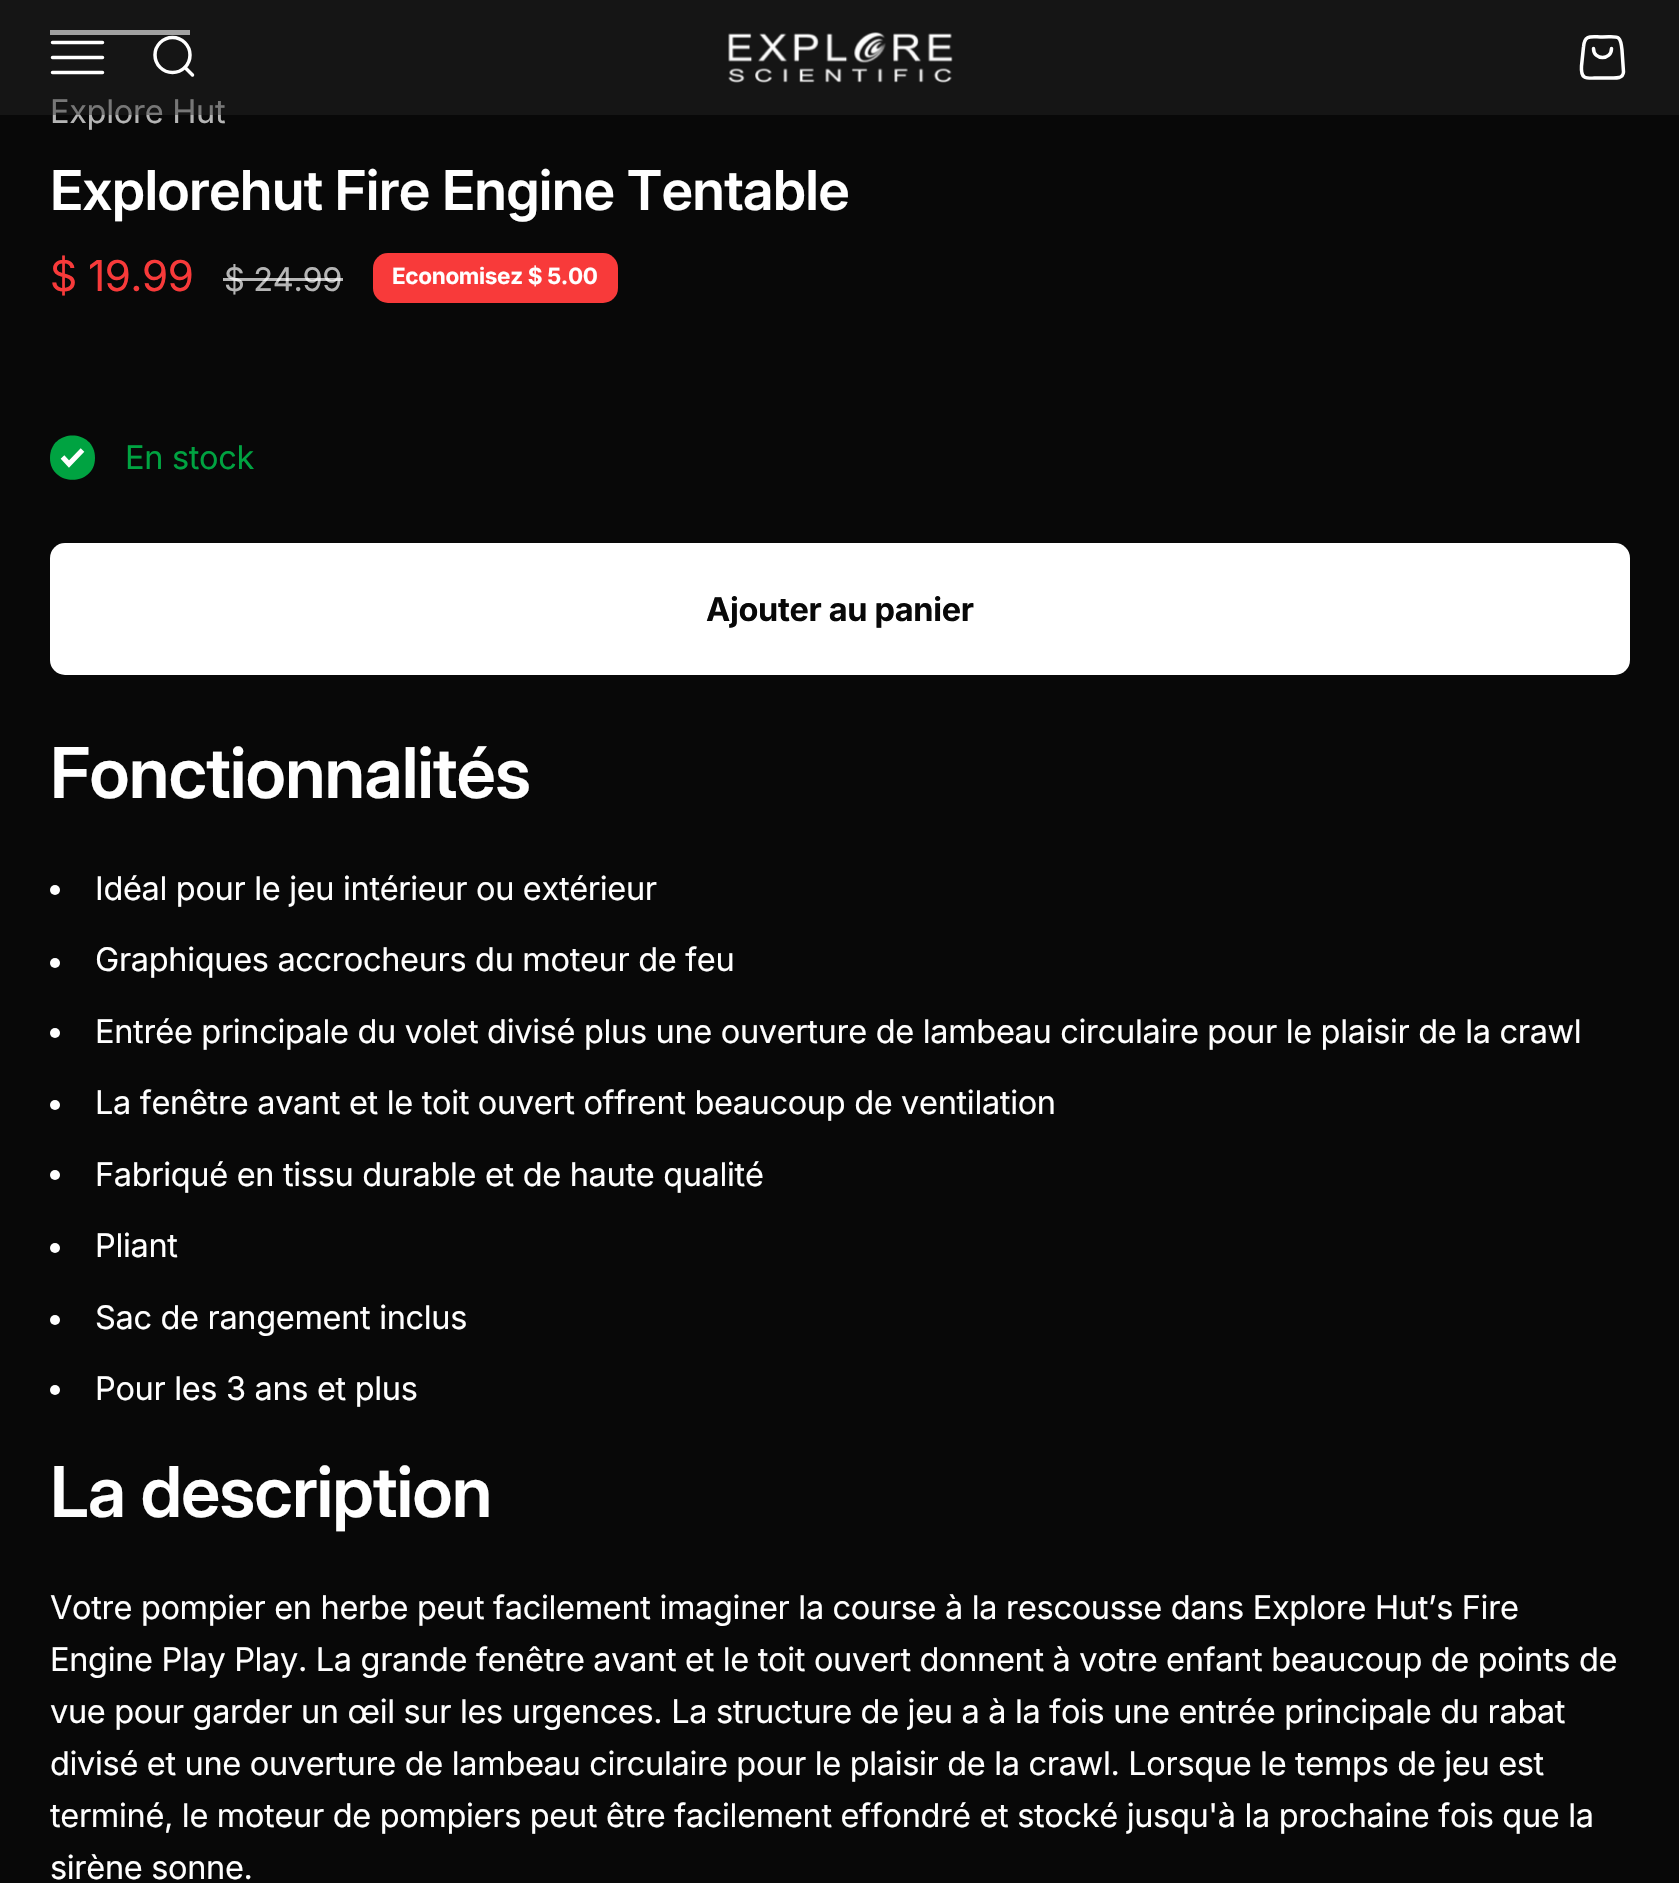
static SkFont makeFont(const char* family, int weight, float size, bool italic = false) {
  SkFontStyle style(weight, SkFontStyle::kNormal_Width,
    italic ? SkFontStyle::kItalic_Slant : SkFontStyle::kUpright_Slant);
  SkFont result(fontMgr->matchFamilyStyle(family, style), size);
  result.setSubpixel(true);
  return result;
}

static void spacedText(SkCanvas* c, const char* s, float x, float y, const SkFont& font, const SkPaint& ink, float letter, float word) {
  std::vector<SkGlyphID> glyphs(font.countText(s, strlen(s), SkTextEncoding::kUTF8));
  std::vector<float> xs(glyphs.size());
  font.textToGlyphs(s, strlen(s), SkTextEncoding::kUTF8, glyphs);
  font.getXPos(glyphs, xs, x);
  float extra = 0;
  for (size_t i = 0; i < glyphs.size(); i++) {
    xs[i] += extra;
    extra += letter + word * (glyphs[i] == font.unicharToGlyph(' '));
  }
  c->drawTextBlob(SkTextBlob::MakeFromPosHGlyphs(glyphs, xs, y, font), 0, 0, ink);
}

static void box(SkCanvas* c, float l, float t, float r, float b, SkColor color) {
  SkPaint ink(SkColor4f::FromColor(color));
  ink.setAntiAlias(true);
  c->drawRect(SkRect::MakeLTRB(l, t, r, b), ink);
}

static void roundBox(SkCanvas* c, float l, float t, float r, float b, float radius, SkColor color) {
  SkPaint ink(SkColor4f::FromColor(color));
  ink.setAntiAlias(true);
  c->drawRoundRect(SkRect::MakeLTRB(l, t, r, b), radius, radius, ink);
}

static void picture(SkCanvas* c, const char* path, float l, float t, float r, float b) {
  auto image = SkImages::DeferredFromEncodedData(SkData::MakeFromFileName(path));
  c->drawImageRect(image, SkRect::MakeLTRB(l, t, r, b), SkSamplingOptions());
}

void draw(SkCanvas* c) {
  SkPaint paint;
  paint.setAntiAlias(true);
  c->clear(0xff080808);
  box(c, 50, 30, 190, 35, 0xffffffff);
  SkFont face1 = makeFont("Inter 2", 400, 32.5f);
  paint.setColor(0xffb5b5b5);
  spacedText(c, "Explore Hut", 50, 123, face1, paint, -0.33f, 0);
  box(c, 0, 0, 1679, 115, 0x6e252525);
  paint.setStyle(SkPaint::kStroke_Style);
  paint.setStrokeWidth(3.5f);
  paint.setStrokeCap(SkPaint::kRound_Cap);
  paint.setColor(0xffffffff);
  c->drawPath(SkPathBuilder().moveTo(52.5f, 42.5f).lineTo(102.5f, 42.5f).moveTo(52.5f, 57.5f).lineTo(102.5f, 57.5f).moveTo(52.5f, 72.5f).lineTo(102.5f, 72.5f).detach(), paint);
  paint.setStrokeCap(SkPaint::kButt_Cap);
  c->drawCircle(172.5f, 55, 17.5f, paint);
  paint.setStrokeCap(SkPaint::kRound_Cap);
  paint.setStrokeJoin(SkPaint::kRound_Join);
  c->drawPath(SkPathBuilder().moveTo(185, 67.5f).lineTo(192.5f, 75).detach(), paint);
  picture(c, "img_01.png", 728, 32, 953, 83);
  c->drawPath(SkPathBuilder().moveTo(1611.5f, 48.5f).cubicTo(1611.5f, 60.5f, 1593.5f, 60.5f, 1593.5f, 48.5f).moveTo(1583.5f, 47).lineTo(1581.5f, 66).cubicTo(1580.5f, 80.5f, 1587, 78, 1599, 78).lineTo(1609, 78).cubicTo(1614, 78, 1623, 79.5f, 1623.5f, 72).lineTo(1622, 50).cubicTo(1620.5f, 34, 1618, 37, 1602.5f, 37).cubicTo(1591, 37, 1584.5f, 34, 1583.5f, 47).close().detach(), paint);
  SkFont face2 = makeFont("Inter", 600, 55);
  paint.setStyle(SkPaint::kFill_Style);
  spacedText(c, "Explorehut Fire Engine Tentable", 50, 210, face2, paint, -0.8f, 0);
  SkFont face3 = makeFont("Inter", 400, 42.5f);
  paint.setColor(0xfff83a3a);
  spacedText(c, "$ 19.99", 50, 291, face3, paint, -0.33f, 0);
  paint.setColor(0xffb5b5b5);
  spacedText(c, "$ 24.99", 224, 291, face1, paint, -0.33f, 0);
  box(c, 223, 278, 343, 281, 0xb3ffffff);
  roundBox(c, 373, 253, 618, 303, 15, 0xfff83a3a);
  SkFont face4 = makeFont("Inter", 700, 22.5f);
  paint.setColor(0xffffffff);
  spacedText(c, "Economisez $ 5.00", 392, 284, face4, paint, -0.33f, 0);
  paint.setColor(0xff00a341);
  c->drawPath(SkPathBuilder().moveTo(50, 458).cubicTo(50, 428, 95, 428, 95, 458).cubicTo(95, 487, 50, 487, 50, 458).close().detach(), paint);
  paint.setStyle(SkPaint::kStroke_Style);
  paint.setStrokeWidth(5);
  paint.setStrokeCap(SkPaint::kButt_Cap);
  paint.setStrokeJoin(SkPaint::kMiter_Join);
  paint.setColor(0xffffffff);
  c->drawPath(SkPathBuilder().moveTo(62.5f, 457).lineTo(69, 464).lineTo(82.5f, 450).detach(), paint);
  paint.setStyle(SkPaint::kFill_Style);
  paint.setColor(0xff00a341);
  spacedText(c, "En stock", 125, 469, face1, paint, -0.33f, 0);
  roundBox(c, 50, 543, 1630, 675, 15, 0xffffffff);
  SkFont face5 = makeFont("Inter", 700, 32.5f);
  paint.setColor(0xff080808);
  spacedText(c, "Ajouter au panier", 706, 621, face5, paint, -0.33f, 0);
  SkFont face6 = makeFont("Inter 2", 600, 70);
  paint.setColor(0xffffffff);
  spacedText(c, "Fonctionnalités", 50, 798, face6, paint, -1, 0);
  c->drawCircle(55, 890, 5, paint);
  spacedText(c, "Idéal pour le jeu intérieur ou extérieur", 95, 900, face1, paint, -0.33f, 0);
  c->drawCircle(55, 963, 5, paint);
  spacedText(c, "Graphiques accrocheurs du moteur de feu", 95, 971, face1, paint, -0.33f, 0);
  c->drawCircle(55, 1033, 5, paint);
  spacedText(c, "Entrée principale du volet divisé plus une ouverture de lambeau circulaire pour le plaisir de la crawl", 95, 1043, face1, paint, -0.33f, 0);
  c->drawCircle(55, 1105, 5, paint);
  spacedText(c, "La fenêtre avant et le toit ouvert offrent beaucoup de ventilation", 95, 1114, face1, paint, -0.33f, 0);
  c->drawCircle(55, 1175, 5, paint);
  spacedText(c, "Fabriqué en tissu durable et de haute qualité", 95, 1186, face1, paint, -0.33f, 0);
  c->drawCircle(55, 1248, 5, paint);
  spacedText(c, "Pliant", 95, 1257, face1, paint, -0.33f, 0);
  c->drawCircle(55, 1320, 5, paint);
  spacedText(c, "Sac de rangement inclus", 95, 1329, face1, paint, -0.33f, 0);
  c->drawCircle(55, 1390, 5, paint);
  spacedText(c, "Pour les 3 ans et plus", 95, 1400, face1, paint, -0.33f, 0);
  spacedText(c, "La description", 50, 1517, face6, paint, -1, 0);
  spacedText(c, "Votre pompier en herbe peut facilement imaginer la course à la rescousse dans Explore Hut’s Fire", 50, 1619, face1, paint, -0.33f, 0);
  spacedText(c, "Engine Play Play. La grande fenêtre avant et le toit ouvert donnent à votre enfant beaucoup de points de", 50, 1671, face1, paint, -0.33f, 0);
  spacedText(c, "vue pour garder un œil sur les urgences. La structure de jeu a à la fois une entrée principale du rabat", 50, 1723, face1, paint, -0.33f, 0);
  spacedText(c, "divisé et une ouverture de lambeau circulaire pour le plaisir de la crawl. Lorsque le temps de jeu est", 50, 1775, face1, paint, -0.33f, 0);
  spacedText(c, "terminé, le moteur de pompiers peut être facilement effondré et stocké jusqu'à la prochaine fois que la", 50, 1827, face1, paint, -0.33f, 0);
  spacedText(c, "sirène sonne.", 50, 1879, face1, paint, -0.33f, 0);
}
